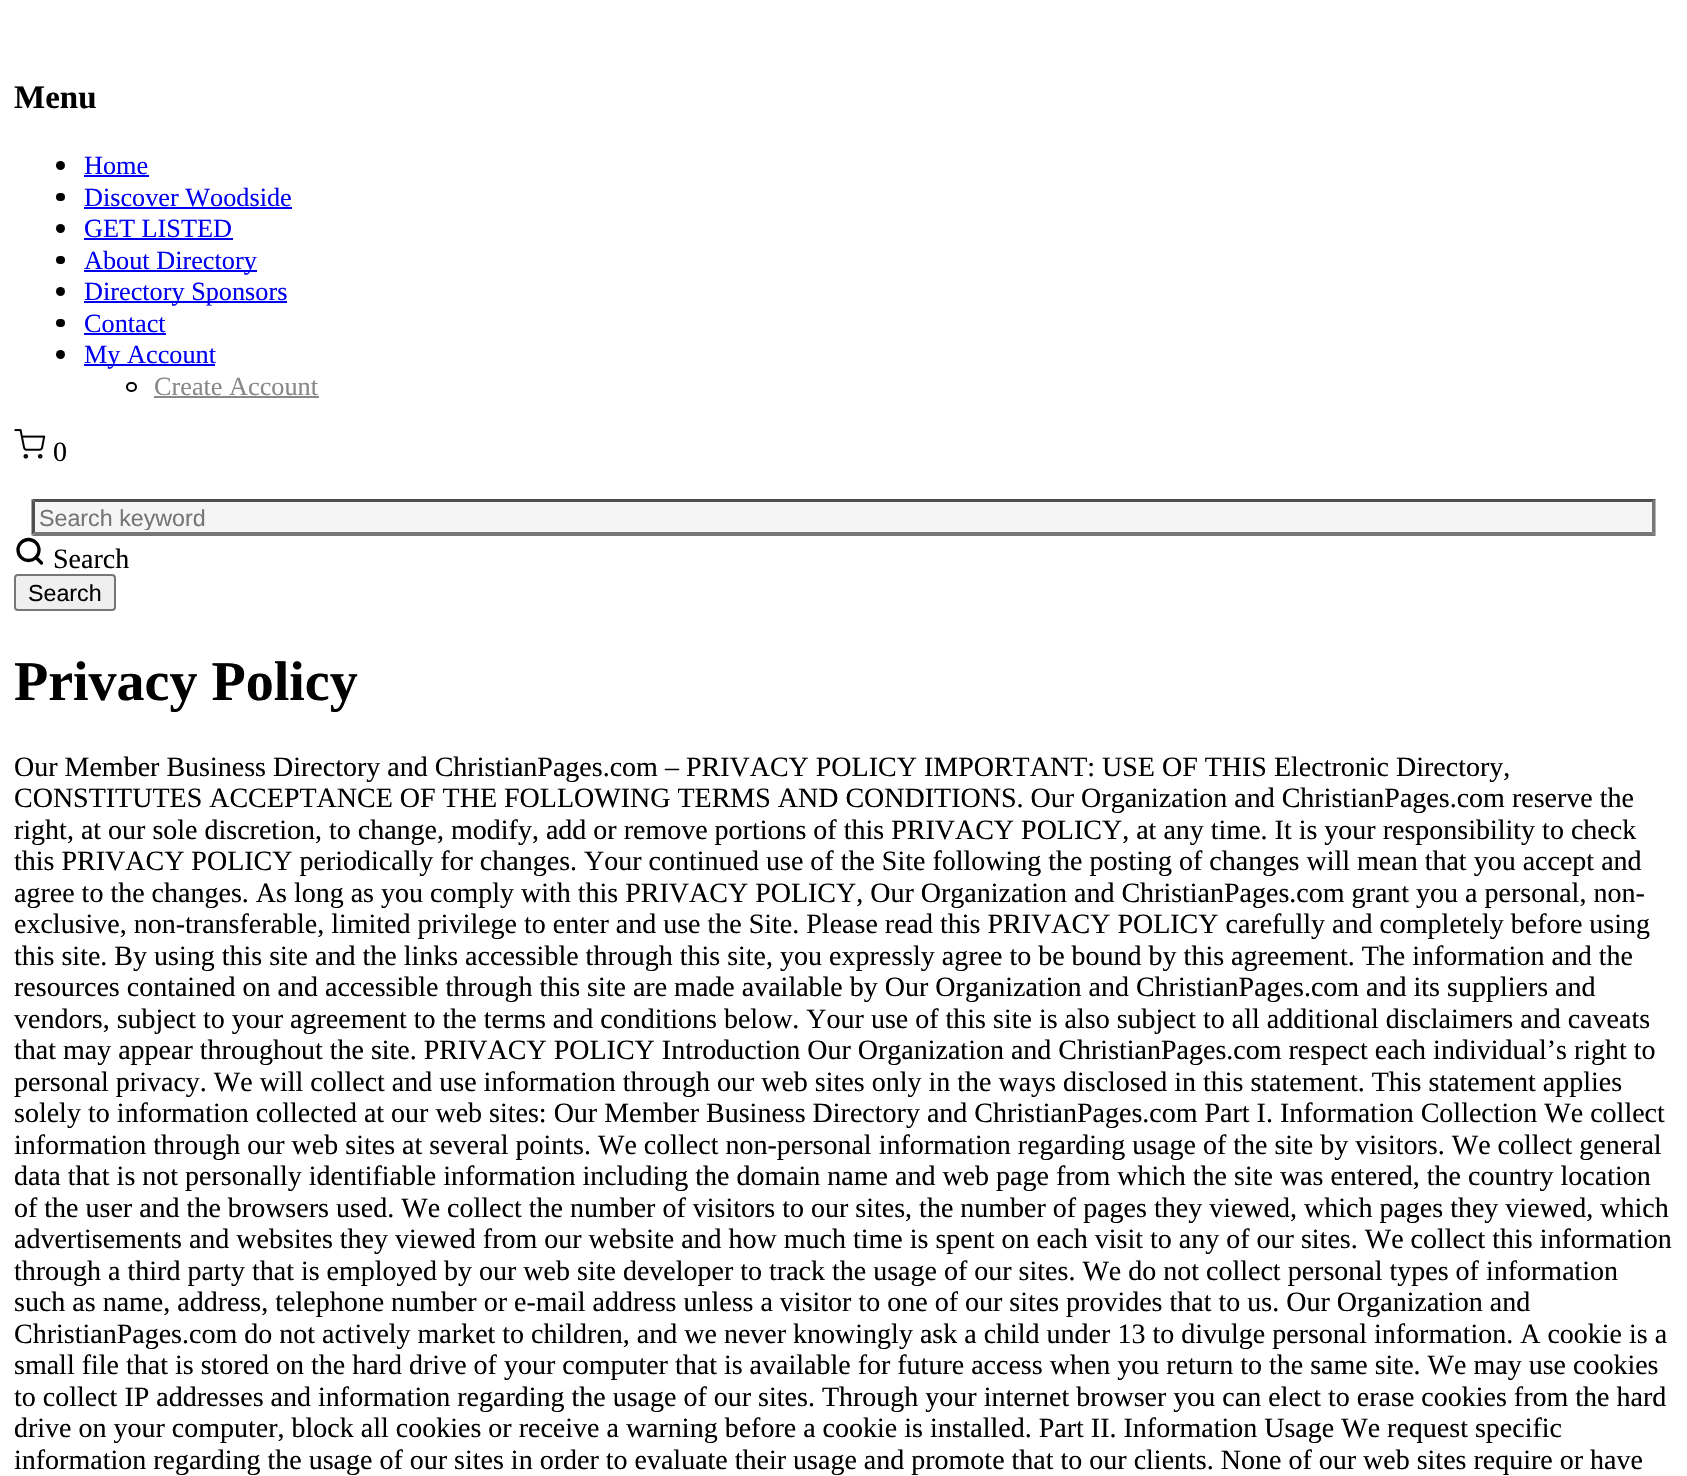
static SkFont makeFont(const char* family, int weight, float size, bool italic = false) {
  SkFontStyle style(weight, SkFontStyle::kNormal_Width,
    italic ? SkFontStyle::kItalic_Slant : SkFontStyle::kUpright_Slant);
  SkFont result(fontMgr->matchFamilyStyle(family, style), size);
  result.setSubpixel(true);
  return result;
}

static void text(SkCanvas* c, const char* s, float x, float y, const SkFont& font, SkColor color) {
  SkPaint ink(SkColor4f::FromColor(color));
  ink.setAntiAlias(true);
  c->drawString(s, x, y, font, ink);
}

static void box(SkCanvas* c, float l, float t, float r, float b, SkColor color) {
  SkPaint ink(SkColor4f::FromColor(color));
  ink.setAntiAlias(true);
  c->drawRect(SkRect::MakeLTRB(l, t, r, b), ink);
}

static void roundBox(SkCanvas* c, float l, float t, float r, float b, float radius, SkColor color) {
  SkPaint ink(SkColor4f::FromColor(color));
  ink.setAntiAlias(true);
  c->drawRoundRect(SkRect::MakeLTRB(l, t, r, b), radius, radius, ink);
}

static void picture(SkCanvas* c, const char* path, float l, float t, float r, float b) {
  auto image = SkImages::DeferredFromEncodedData(SkData::MakeFromFileName(path));
  c->drawImageRect(image, SkRect::MakeLTRB(l, t, r, b), SkSamplingOptions());
}

void draw(SkCanvas* c) {
  SkPaint paint;
  paint.setAntiAlias(true);
  c->clear(0xffffffff);
  SkFont face1 = makeFont("Liberation Serif", 700, 33);
  text(c, "Menu", 14, 108, face1, 0xff000000);
  paint.setColor(0xff000000);
  c->drawCircle(60.5f, 165.5f, 4.5f, paint);
  SkFont face2 = makeFont("Liberation Serif", 400, 26.25f);
  text(c, "Home", 84, 174, face2, 0xff0000ee);
  box(c, 84, 175, 149, 177, 0xff0000ee);
  roundBox(c, 56, 193, 65, 201, 4, 0xff000000);
  text(c, "Discover Woodside", 84, 206, face2, 0xff0000ee);
  box(c, 84, 207, 292, 209, 0xff0000ee);
  c->drawCircle(60.5f, 228.5f, 4.5f, paint);
  text(c, "GET LISTED", 84, 237, face2, 0xff0000ee);
  box(c, 84, 238, 233, 240, 0xff0000ee);
  roundBox(c, 56, 256, 65, 264, 4, 0xff000000);
  box(c, 84, 270, 257, 272, 0xff0000ee);
  text(c, "About Directory", 84, 269, face2, 0xff0000ee);
  c->drawCircle(60.5f, 291.5f, 4.5f, paint);
  box(c, 84, 301, 287, 303, 0xff0000ee);
  text(c, "Directory Sponsors", 84, 300, face2, 0xff0000ee);
  roundBox(c, 56, 319, 65, 327, 4, 0xff000000);
  text(c, "Contact", 84, 332, face2, 0xff0000ee);
  box(c, 84, 333, 166, 335, 0xff0000ee);
  c->drawCircle(60.5f, 354.5f, 4.5f, paint);
  box(c, 84, 364, 215, 366, 0xff0000ee);
  text(c, "My Account", 84, 363, face2, 0xff0000ee);
  paint.setStyle(SkPaint::kStroke_Style);
  paint.setStrokeWidth(2);
  c->drawRoundRect(SkRect::MakeLTRB(127, 383, 136, 391), 4, 4, paint);
  text(c, "Create Account", 154, 395, face2, 0xff898888);
  box(c, 154, 396, 319, 398, 0xff898888);
  picture(c, "img_01.png", 14, 429, 46, 459);
  SkFont face3 = makeFont("Liberation Serif", 400, 28);
  text(c, "0", 53, 461, face3, 0xff000000);
  box(c, 32, 499, 1656, 536, 0xfff5f5f5);
  paint.setStyle(SkPaint::kFill_Style);
  paint.setColor(0xff4f4f4f);
  c->drawPath(SkPathBuilder().moveTo(32, 499).lineTo(1656, 499).lineTo(1652, 502).lineTo(35, 502).close().detach(), paint);
  paint.setColor(0xff767676);
  c->drawPath(SkPathBuilder().moveTo(1655.5f, 499).lineTo(1655.5f, 535.5f).lineTo(1652, 532).lineTo(1652, 502).close().detach(), paint);
  c->drawPath(SkPathBuilder().moveTo(1656, 536).lineTo(32, 536).lineTo(35, 532).lineTo(1652, 532).close().detach(), paint);
  paint.setColor(0xff4f4f4f);
  c->drawPath(SkPathBuilder().moveTo(31.5f, 535.5f).lineTo(31.5f, 499).lineTo(35, 502).lineTo(35, 532).close().detach(), paint);
  c->save();
  c->clipRect(SkRect::MakeLTRB(39, 504, 1649, 530));
  SkFont face4 = makeFont("Liberation Sans", 400, 23.25f);
  text(c, "Search keyword", 39, 526, face4, 0xff757575);
  c->restore();
  paint.setStyle(SkPaint::kStroke_Style);
  paint.setStrokeWidth(3.3f);
  paint.setColor(0xff000000);
  c->drawCircle(28.5f, 550, 10.5f, paint);
  text(c, "Search", 53, 568, face3, 0xff000000);
  paint.setStrokeCap(SkPaint::kRound_Cap);
  paint.setStrokeJoin(SkPaint::kRound_Join);
  c->drawPath(SkPathBuilder().moveTo(41.5f, 563).lineTo(36, 557.5f).detach(), paint);
  paint.setStyle(SkPaint::kFill_Style);
  paint.setColor(0xffefefef);
  c->drawRoundRect(SkRect::MakeLTRB(15, 575, 115, 610), 3, 3, paint);
  paint.setStyle(SkPaint::kStroke_Style);
  paint.setStrokeWidth(2);
  paint.setStrokeCap(SkPaint::kButt_Cap);
  paint.setStrokeJoin(SkPaint::kMiter_Join);
  paint.setColor(0xff767676);
  c->drawRoundRect(SkRect::MakeLTRB(15, 575, 115, 610), 3, 3, paint);
  text(c, "Search", 28, 601, face4, 0xff000000);
  SkFont face5 = makeFont("Liberation Serif", 700, 56);
  text(c, "Privacy Policy", 14, 700, face5, 0xff000000);
  text(c, "Our Member Business Directory and ChristianPages.com – PRIVACY POLICY IMPORTANT: USE OF THIS Electronic Directory,", 14, 776, face3, 0xff000000);
  text(c, "CONSTITUTES ACCEPTANCE OF THE FOLLOWING TERMS AND CONDITIONS. Our Organization and ChristianPages.com reserve the", 14, 807, face3, 0xff000000);
  text(c, "right, at our sole discretion, to change, modify, add or remove portions of this PRIVACY POLICY, at any time. It is your responsibility to check", 14, 839, face3, 0xff000000);
  text(c, "this PRIVACY POLICY periodically for changes. Your continued use of the Site following the posting of changes will mean that you accept and", 14, 870, face3, 0xff000000);
  text(c, "agree to the changes. As long as you comply with this PRIVACY POLICY, Our Organization and ChristianPages.com grant you a personal, non-", 14, 902, face3, 0xff000000);
  text(c, "exclusive, non-transferable, limited privilege to enter and use the Site. Please read this PRIVACY POLICY carefully and completely before using", 14, 933, face3, 0xff000000);
  text(c, "this site. By using this site and the links accessible through this site, you expressly agree to be bound by this agreement. The information and the", 14, 965, face3, 0xff000000);
  text(c, "resources contained on and accessible through this site are made available by Our Organization and ChristianPages.com and its suppliers and", 14, 996, face3, 0xff000000);
  text(c, "vendors, subject to your agreement to the terms and conditions below. Your use of this site is also subject to all additional disclaimers and caveats", 14, 1028, face3, 0xff000000);
  text(c, "that may appear throughout the site. PRIVACY POLICY Introduction Our Organization and ChristianPages.com respect each individual’s right to", 14, 1059, face3, 0xff000000);
  text(c, "personal privacy. We will collect and use information through our web sites only in the ways disclosed in this statement. This statement applies", 14, 1091, face3, 0xff000000);
  text(c, "solely to information collected at our web sites: Our Member Business Directory and ChristianPages.com Part I. Information Collection We collect", 14, 1122, face3, 0xff000000);
  text(c, "information through our web sites at several points. We collect non-personal information regarding usage of the site by visitors. We collect general", 14, 1154, face3, 0xff000000);
  text(c, "data that is not personally identifiable information including the domain name and web page from which the site was entered, the country location", 14, 1185, face3, 0xff000000);
  text(c, "of the user and the browsers used. We collect the number of visitors to our sites, the number of pages they viewed, which pages they viewed, which", 14, 1217, face3, 0xff000000);
  text(c, "advertisements and websites they viewed from our website and how much time is spent on each visit to any of our sites. We collect this information", 14, 1248, face3, 0xff000000);
  text(c, "through a third party that is employed by our web site developer to track the usage of our sites. We do not collect personal types of information", 14, 1280, face3, 0xff000000);
  text(c, "such as name, address, telephone number or e-mail address unless a visitor to one of our sites provides that to us. Our Organization and", 14, 1311, face3, 0xff000000);
  text(c, "ChristianPages.com do not actively market to children, and we never knowingly ask a child under 13 to divulge personal information. A cookie is a", 14, 1343, face3, 0xff000000);
  text(c, "small file that is stored on the hard drive of your computer that is available for future access when you return to the same site. We may use cookies", 14, 1374, face3, 0xff000000);
  text(c, "to collect IP addresses and information regarding the usage of our sites. Through your internet browser you can elect to erase cookies from the hard", 14, 1406, face3, 0xff000000);
  text(c, "drive on your computer, block all cookies or receive a warning before a cookie is installed. Part II. Information Usage We request specific", 14, 1437, face3, 0xff000000);
  text(c, "information regarding the usage of our sites in order to evaluate their usage and promote that to our clients. None of our web sites require or have", 14, 1469, face3, 0xff000000);
}
